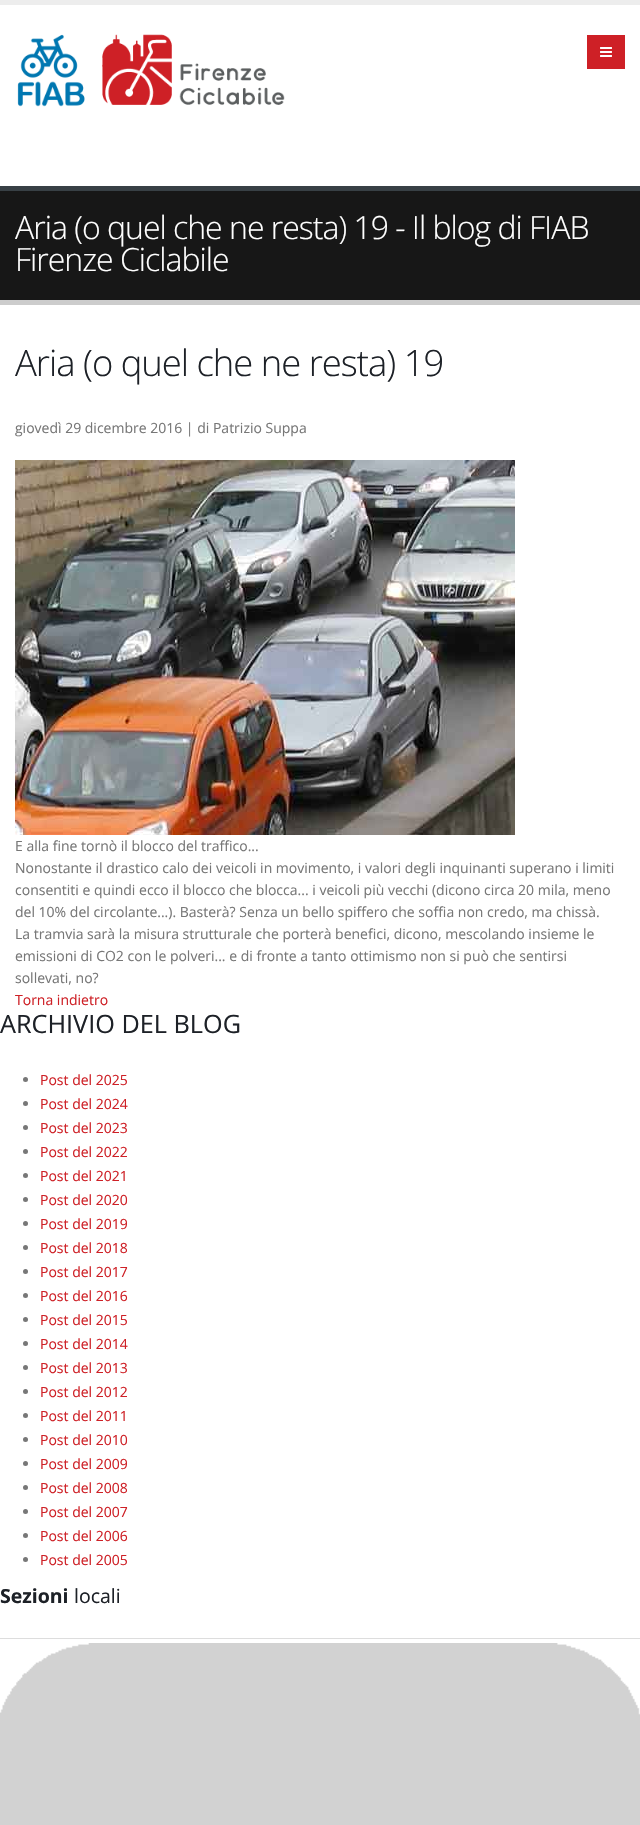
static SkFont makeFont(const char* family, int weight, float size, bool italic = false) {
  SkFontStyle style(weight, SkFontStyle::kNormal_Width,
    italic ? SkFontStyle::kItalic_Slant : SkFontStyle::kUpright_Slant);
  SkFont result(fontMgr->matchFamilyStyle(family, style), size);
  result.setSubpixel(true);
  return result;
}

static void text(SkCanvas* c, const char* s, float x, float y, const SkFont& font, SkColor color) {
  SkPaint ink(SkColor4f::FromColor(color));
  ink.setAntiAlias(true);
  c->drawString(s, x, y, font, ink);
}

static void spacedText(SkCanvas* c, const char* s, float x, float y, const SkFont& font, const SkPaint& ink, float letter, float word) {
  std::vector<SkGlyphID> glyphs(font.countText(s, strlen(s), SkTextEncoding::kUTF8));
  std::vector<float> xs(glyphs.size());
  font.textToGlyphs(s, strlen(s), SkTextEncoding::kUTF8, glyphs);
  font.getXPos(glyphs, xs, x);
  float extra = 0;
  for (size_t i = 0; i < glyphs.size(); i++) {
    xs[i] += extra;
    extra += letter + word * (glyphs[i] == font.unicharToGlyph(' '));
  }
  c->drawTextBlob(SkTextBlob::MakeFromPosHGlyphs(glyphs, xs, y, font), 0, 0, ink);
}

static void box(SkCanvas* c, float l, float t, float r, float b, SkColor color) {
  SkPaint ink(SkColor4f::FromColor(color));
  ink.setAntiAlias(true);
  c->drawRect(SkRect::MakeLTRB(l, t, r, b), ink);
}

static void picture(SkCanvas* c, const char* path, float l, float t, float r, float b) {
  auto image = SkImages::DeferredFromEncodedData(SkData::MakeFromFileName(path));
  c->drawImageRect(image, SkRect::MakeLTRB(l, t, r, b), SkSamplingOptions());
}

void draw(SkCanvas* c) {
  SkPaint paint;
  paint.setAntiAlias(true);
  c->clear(0xffffffff);
  box(c, 0, 0, 640, 5, 0xffededed);
  picture(c, "img_01.png", 17, 34, 285, 107);
  box(c, 587, 35, 625, 69, 0xffce2026);
  picture(c, "img_02.png", 600, 47, 612, 57);
  box(c, 0, 191, 640, 300, 0xff171717);
  box(c, 0, 186, 640, 191, 0xff384045);
  box(c, 0, 300, 640, 305, 0xffcccccc);
  SkFont face1 = makeFont("Open Sans", 300, 32);
  paint.setColor(0xffffffff);
  spacedText(c, "Aria (o quel che ne resta) 19 - Il blog di FIAB", 15, 239, face1, paint, -1, 0);
  spacedText(c, "Firenze Ciclabile", 15, 271, face1, paint, -1, 0);
  SkFont face2 = makeFont("Open Sans", 300, 36.4f);
  paint.setColor(0xff1d2127);
  spacedText(c, "Aria (o quel che ne resta) 19", 15, 376, face2, paint, -1, 0);
  SkFont face3 = makeFont("Open Sans", 400, 14);
  text(c, "giovedì 29 dicembre 2016 | di Patrizio Suppa", 15, 433, face3, 0xff777777);
  picture(c, "img_03.png", 15, 460, 515, 835);
  text(c, "E alla fine tornò il blocco del traffico...", 15, 851, face3, 0xff777777);
  text(c, "Nonostante il drastico calo dei veicoli in movimento, i valori degli inquinanti superano i limiti", 15, 873, face3, 0xff777777);
  text(c, "consentiti e quindi ecco il blocco che blocca... i veicoli più vecchi (dicono circa 20 mila, meno", 15, 895, face3, 0xff777777);
  text(c, "del 10% del circolante...). Basterà? Senza un bello spiffero che soffia non credo, ma chissà.", 15, 917, face3, 0xff777777);
  text(c, "La tramvia sarà la misura strutturale che porterà benefici, dicono, mescolando insieme le", 15, 939, face3, 0xff777777);
  text(c, "emissioni di CO2 con le polveri... e di fronte a tanto ottimismo non si può che sentirsi", 15, 961, face3, 0xff777777);
  text(c, "sollevati, no?", 15, 983, face3, 0xff777777);
  text(c, "Torna indietro", 15, 1005, face3, 0xffce2026);
  SkFont face4 = makeFont("Open Sans", 400, 25.25f);
  text(c, "ARCHIVIO DEL BLOG", 0, 1033, face4, 0xff1d2127);
  paint.setColor(0xff777777);
  c->drawCircle(25.5f, 1079.5f, 2.5f, paint);
  text(c, "Post del 2025", 40, 1085, face3, 0xffce2026);
  c->drawCircle(25.5f, 1103.5f, 2.5f, paint);
  text(c, "Post del 2024", 40, 1109, face3, 0xffce2026);
  c->drawCircle(25.5f, 1127.5f, 2.5f, paint);
  text(c, "Post del 2023", 40, 1133, face3, 0xffce2026);
  c->drawCircle(25.5f, 1151.5f, 2.5f, paint);
  text(c, "Post del 2022", 40, 1157, face3, 0xffce2026);
  c->drawCircle(25.5f, 1175.5f, 2.5f, paint);
  text(c, "Post del 2021", 40, 1181, face3, 0xffce2026);
  c->drawCircle(25.5f, 1199.5f, 2.5f, paint);
  text(c, "Post del 2020", 40, 1205, face3, 0xffce2026);
  c->drawCircle(25.5f, 1223.5f, 2.5f, paint);
  text(c, "Post del 2019", 40, 1229, face3, 0xffce2026);
  c->drawCircle(25.5f, 1247.5f, 2.5f, paint);
  text(c, "Post del 2018", 40, 1253, face3, 0xffce2026);
  c->drawCircle(25.5f, 1271.5f, 2.5f, paint);
  text(c, "Post del 2017", 40, 1277, face3, 0xffce2026);
  c->drawCircle(25.5f, 1295.5f, 2.5f, paint);
  text(c, "Post del 2016", 40, 1301, face3, 0xffce2026);
  c->drawCircle(25.5f, 1319.5f, 2.5f, paint);
  text(c, "Post del 2015", 40, 1325, face3, 0xffce2026);
  c->drawCircle(25.5f, 1343.5f, 2.5f, paint);
  text(c, "Post del 2014", 40, 1349, face3, 0xffce2026);
  c->drawCircle(25.5f, 1367.5f, 2.5f, paint);
  text(c, "Post del 2013", 40, 1373, face3, 0xffce2026);
  c->drawCircle(25.5f, 1391.5f, 2.5f, paint);
  text(c, "Post del 2012", 40, 1397, face3, 0xffce2026);
  c->drawCircle(25.5f, 1415.5f, 2.5f, paint);
  text(c, "Post del 2011", 40, 1421, face3, 0xffce2026);
  c->drawCircle(25.5f, 1439.5f, 2.5f, paint);
  text(c, "Post del 2010", 40, 1445, face3, 0xffce2026);
  c->drawCircle(25.5f, 1463.5f, 2.5f, paint);
  text(c, "Post del 2009", 40, 1469, face3, 0xffce2026);
  c->drawCircle(25.5f, 1487.5f, 2.5f, paint);
  text(c, "Post del 2008", 40, 1493, face3, 0xffce2026);
  c->drawCircle(25.5f, 1511.5f, 2.5f, paint);
  text(c, "Post del 2007", 40, 1517, face3, 0xffce2026);
  c->drawCircle(25.5f, 1535.5f, 2.5f, paint);
  text(c, "Post del 2006", 40, 1541, face3, 0xffce2026);
  c->drawCircle(25.5f, 1559.5f, 2.5f, paint);
  text(c, "Post del 2005", 40, 1565, face3, 0xffce2026);
  SkFont face5 = makeFont("Open Sans", 700, 19.5f);
  text(c, "Sezioni", 0, 1603, face5, 0xff1d2127);
  SkFont face6 = makeFont("Open Sans", 400, 19.5f);
  text(c, "locali", 74, 1603, face6, 0xff1d2127);
  paint.setStyle(SkPaint::kStroke_Style);
  paint.setStrokeWidth(1);
  paint.setColor(0xffdddddd);
  c->drawRect(SkRect::MakeLTRB(-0.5f, 1638.5f, 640.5f, 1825.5f), paint);
  picture(c, "img_04.png", 0, 1643, 640, 1825);
}
